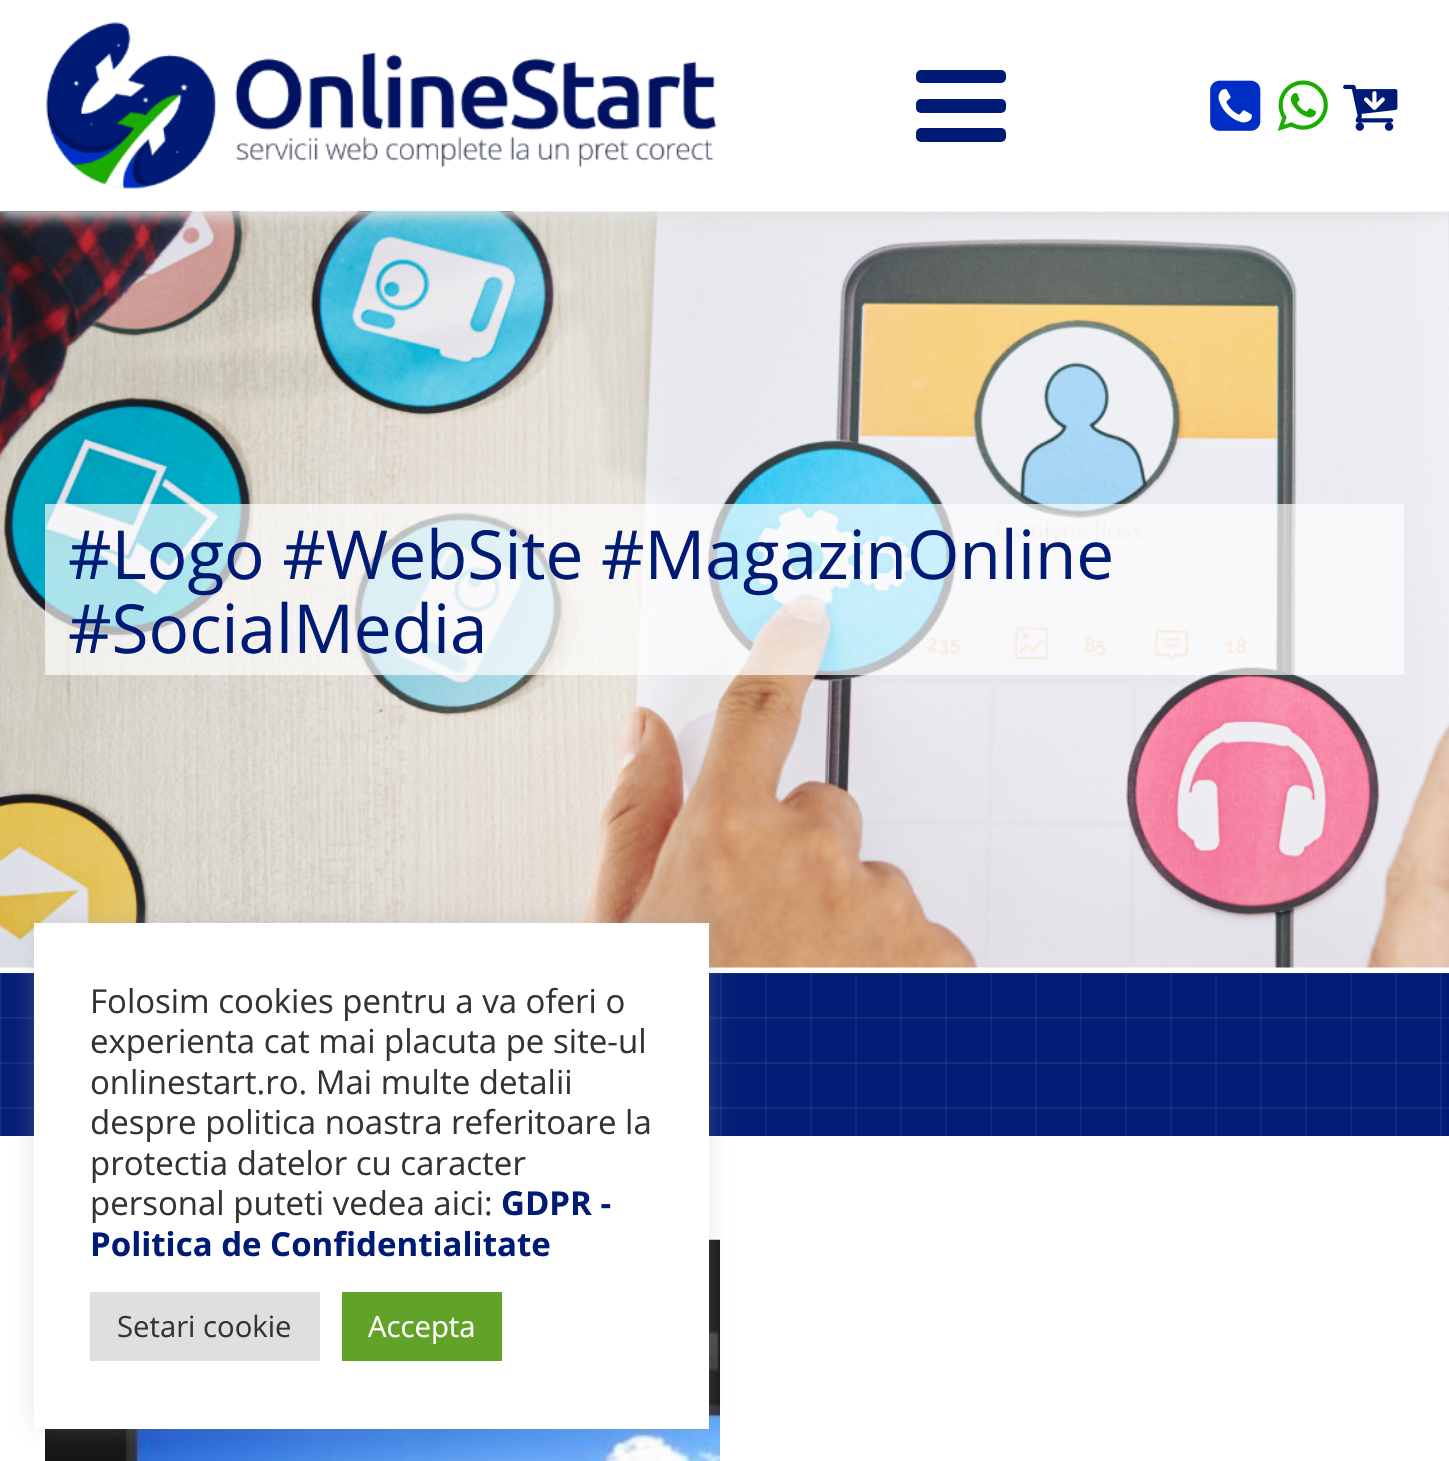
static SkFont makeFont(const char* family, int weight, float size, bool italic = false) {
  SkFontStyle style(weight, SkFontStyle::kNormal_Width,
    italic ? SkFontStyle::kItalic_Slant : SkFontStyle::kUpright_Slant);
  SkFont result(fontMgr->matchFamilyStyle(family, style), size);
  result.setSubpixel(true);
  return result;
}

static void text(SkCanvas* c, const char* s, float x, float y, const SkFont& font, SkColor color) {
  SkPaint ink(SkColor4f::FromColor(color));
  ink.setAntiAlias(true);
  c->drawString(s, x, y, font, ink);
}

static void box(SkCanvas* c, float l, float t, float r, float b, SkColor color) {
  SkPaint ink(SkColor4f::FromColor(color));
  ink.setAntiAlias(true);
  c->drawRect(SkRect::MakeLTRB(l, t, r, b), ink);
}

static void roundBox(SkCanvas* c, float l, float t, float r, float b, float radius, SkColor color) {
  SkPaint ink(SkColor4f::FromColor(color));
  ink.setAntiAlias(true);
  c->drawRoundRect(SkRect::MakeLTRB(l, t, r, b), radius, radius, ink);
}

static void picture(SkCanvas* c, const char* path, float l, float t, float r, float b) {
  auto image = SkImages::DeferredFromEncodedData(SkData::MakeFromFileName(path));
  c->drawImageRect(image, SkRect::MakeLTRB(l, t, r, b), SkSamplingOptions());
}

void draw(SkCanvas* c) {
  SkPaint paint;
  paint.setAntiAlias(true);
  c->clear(0xffffffff);
  picture(c, "img_05.png", 0, 211, 1449, 968);
  c->save();
  c->clipPath(SkPathBuilder(SkPathFillType::kEvenOdd).moveTo(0, 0).lineTo(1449, 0).lineTo(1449, 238).lineTo(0, 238).close().moveTo(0, 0).lineTo(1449, 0).lineTo(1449, 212).lineTo(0, 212).close().detach(), true);
  paint.setColor(0xffe0e0e0);
  paint.setMaskFilter(SkMaskFilter::MakeBlur(kNormal_SkBlurStyle, 7));
  c->drawRect(SkRect::MakeLTRB(0, 5, 1449, 216), paint);
  paint.setMaskFilter(nullptr);
  c->restore();
  picture(c, "img_01.png", 46, 22, 717, 189);
  roundBox(c, 916, 70, 1006, 83, 5, 0xff001b76);
  roundBox(c, 916, 99, 1006, 113, 5, 0xff001b76);
  roundBox(c, 916, 128, 1006, 142, 5, 0xff001b76);
  picture(c, "img_02.png", 1210, 80, 1261, 131);
  picture(c, "img_03.png", 1277, 80, 1328, 131);
  picture(c, "img_04.png", 1343, 84, 1398, 131);
  box(c, 45, 504, 1404, 675, 0xabffffff);
  SkFont face1 = makeFont("Open Sans", 400, 67.5f);
  text(c, "#Logo #WebSite #MagazinOnline", 68, 579, face1, 0xff001b76);
  text(c, "#SocialMedia", 68, 653, face1, 0xff001b76);
  box(c, 0, 973, 1449, 1136, 0xff001b76);
  picture(c, "img_06.png", 0, 973, 1442, 1136);
  box(c, 0, 973, 1449, 974, 0x0fffffff);
  box(c, 0, 1017, 1449, 1019, 0x0fffffff);
  box(c, 0, 1062, 1449, 1064, 0x0fffffff);
  box(c, 0, 1107, 1449, 1109, 0x0fffffff);
  picture(c, "img_07.png", 45, 1239, 720, 1461);
  paint.setColor(0x4dacabab);
  paint.setMaskFilter(SkMaskFilter::MakeBlur(kNormal_SkBlurStyle, 11));
  c->drawRect(SkRect::MakeLTRB(34, 920, 709, 1427), paint);
  paint.setMaskFilter(nullptr);
  box(c, 34, 923, 709, 1429, 0xffffffff);
  SkFont face2 = makeFont("Open Sans", 400, 33);
  text(c, "Folosim cookies pentru a va oferi o", 90, 1013, face2, 0xff333333);
  text(c, "experienta cat mai placuta pe site-ul", 90, 1053, face2, 0xff333333);
  text(c, "onlinestart.ro. Mai multe detalii", 90, 1094, face2, 0xff333333);
  text(c, "despre politica noastra referitoare la", 90, 1134, face2, 0xff333333);
  text(c, "protectia datelor cu caracter", 90, 1175, face2, 0xff333333);
  text(c, "personal puteti vedea aici:", 90, 1215, face2, 0xff333333);
  SkFont face3 = makeFont("Open Sans", 700, 33);
  text(c, "GDPR -", 501, 1215, face3, 0xff001b76);
  text(c, "Politica de Confidentialitate", 90, 1256, face3, 0xff001b76);
  box(c, 90, 1292, 320, 1361, 0xffdedfe0);
  SkFont face4 = makeFont("Open Sans", 400, 29.25f);
  text(c, "Setari cookie", 117, 1337, face4, 0xff333333);
  box(c, 342, 1292, 502, 1361, 0xff61a229);
  text(c, "Accepta", 368, 1337, face4, 0xffffffff);
}
